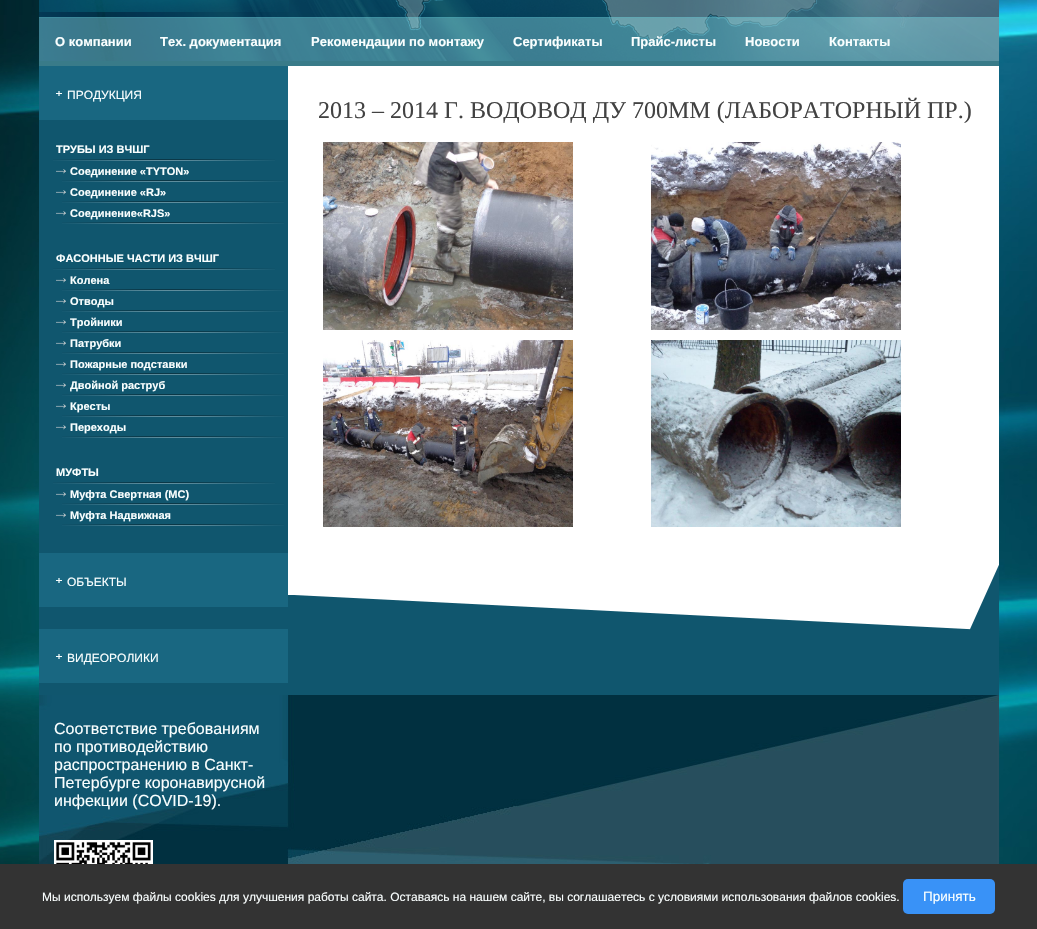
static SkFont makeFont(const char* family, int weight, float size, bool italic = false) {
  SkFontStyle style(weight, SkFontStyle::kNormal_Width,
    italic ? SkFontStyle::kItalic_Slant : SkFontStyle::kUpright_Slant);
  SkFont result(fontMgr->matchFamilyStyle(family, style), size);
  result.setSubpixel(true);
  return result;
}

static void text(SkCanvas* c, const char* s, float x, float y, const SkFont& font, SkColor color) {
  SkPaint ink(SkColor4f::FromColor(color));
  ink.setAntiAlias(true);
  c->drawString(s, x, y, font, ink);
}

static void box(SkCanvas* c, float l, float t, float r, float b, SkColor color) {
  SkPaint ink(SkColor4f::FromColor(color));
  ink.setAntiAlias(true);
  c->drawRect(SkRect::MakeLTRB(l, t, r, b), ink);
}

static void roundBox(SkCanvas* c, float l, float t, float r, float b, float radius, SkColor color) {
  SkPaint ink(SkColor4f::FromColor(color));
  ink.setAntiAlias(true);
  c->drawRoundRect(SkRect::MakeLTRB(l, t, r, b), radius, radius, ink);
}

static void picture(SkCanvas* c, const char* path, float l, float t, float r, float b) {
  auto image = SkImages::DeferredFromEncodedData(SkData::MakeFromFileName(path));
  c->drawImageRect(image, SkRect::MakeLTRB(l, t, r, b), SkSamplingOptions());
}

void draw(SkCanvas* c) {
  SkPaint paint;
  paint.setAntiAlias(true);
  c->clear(0xffffffff);
  picture(c, "img_01.png", 0, 0, 1037, 864);
  box(c, 39, 120, 999, 695, 0xff10566e);
  box(c, 39, 0, 999, 66, 0xff00374a);
  picture(c, "img_02.png", 39, 0, 999, 61);
  picture(c, "img_03.png", 39, 0, 289, 12);
  box(c, 39, 17, 999, 18, 0x360997aa);
  box(c, 39, 17, 999, 66, 0x59a3f9ff);
  SkFont face1 = makeFont("Liberation Sans", 700, 13);
  text(c, "О компании", 55, 46, face1, 0xfffaffff);
  text(c, "Тех. документация", 160, 46, face1, 0xfffaffff);
  text(c, "Рекомендации по монтажу", 311, 46, face1, 0xfffaffff);
  text(c, "Сертификаты", 513, 46, face1, 0xfffaffff);
  text(c, "Прайс-листы", 631, 46, face1, 0xfffaffff);
  text(c, "Новости", 745, 46, face1, 0xfffaffff);
  text(c, "Контакты", 829, 46, face1, 0xfffaffff);
  picture(c, "img_04.png", 39, 695, 999, 864);
  box(c, 39, 66, 288, 120, 0xff196781);
  picture(c, "img_05.png", 56, 91, 62, 96);
  SkFont face2 = makeFont("Liberation Sans", 400, 12);
  text(c, "ПРОДУКЦИЯ", 67, 99, face2, 0xfffaffff);
  SkFont face3 = makeFont("Liberation Sans", 700, 11);
  text(c, "ТРУБЫ ИЗ ВЧШГ", 56, 153, face3, 0xfffaffff);
  picture(c, "img_06.png", 53, 159, 275, 161);
  picture(c, "img_06.png", 62, 180, 284, 182);
  picture(c, "img_07.png", 56, 169, 66, 174);
  text(c, "Соединение «TYTON»", 70, 175, face3, 0xfffaffff);
  picture(c, "img_06.png", 62, 201, 284, 203);
  picture(c, "img_07.png", 56, 190, 66, 195);
  text(c, "Соединение «RJ»", 70, 196, face3, 0xfffaffff);
  picture(c, "img_06.png", 62, 222, 284, 224);
  picture(c, "img_07.png", 56, 211, 66, 216);
  text(c, "Соединение«RJS»", 70, 217, face3, 0xfffaffff);
  text(c, "ФАСОННЫЕ ЧАСТИ ИЗ ВЧШГ", 56, 262, face3, 0xfffaffff);
  picture(c, "img_06.png", 53, 268, 275, 270);
  picture(c, "img_06.png", 62, 289, 284, 291);
  picture(c, "img_07.png", 56, 278, 66, 283);
  text(c, "Колена", 70, 284, face3, 0xfffaffff);
  picture(c, "img_06.png", 62, 310, 284, 312);
  picture(c, "img_07.png", 56, 299, 66, 304);
  text(c, "Отводы", 70, 305, face3, 0xfffaffff);
  picture(c, "img_06.png", 62, 331, 284, 333);
  picture(c, "img_07.png", 56, 320, 66, 325);
  text(c, "Тройники", 70, 326, face3, 0xfffaffff);
  picture(c, "img_06.png", 62, 352, 284, 354);
  picture(c, "img_07.png", 56, 341, 66, 346);
  text(c, "Патрубки", 70, 347, face3, 0xfffaffff);
  picture(c, "img_06.png", 62, 373, 284, 375);
  picture(c, "img_07.png", 56, 362, 66, 367);
  text(c, "Пожарные подставки", 70, 368, face3, 0xfffaffff);
  picture(c, "img_06.png", 62, 394, 284, 396);
  picture(c, "img_07.png", 56, 383, 66, 388);
  text(c, "Двойной раструб", 70, 389, face3, 0xfffaffff);
  picture(c, "img_06.png", 62, 415, 284, 417);
  picture(c, "img_07.png", 56, 404, 66, 409);
  text(c, "Кресты", 70, 410, face3, 0xfffaffff);
  picture(c, "img_06.png", 62, 436, 284, 438);
  picture(c, "img_07.png", 56, 425, 66, 430);
  text(c, "Переходы", 70, 431, face3, 0xfffaffff);
  text(c, "МУФТЫ", 56, 476, face3, 0xfffaffff);
  picture(c, "img_06.png", 53, 482, 275, 484);
  picture(c, "img_06.png", 62, 503, 284, 505);
  picture(c, "img_07.png", 56, 492, 66, 497);
  text(c, "Муфта Свертная (МС)", 70, 498, face3, 0xfffaffff);
  picture(c, "img_06.png", 62, 524, 284, 526);
  picture(c, "img_07.png", 56, 513, 66, 518);
  text(c, "Муфта Надвижная", 70, 519, face3, 0xfffaffff);
  box(c, 39, 553, 288, 607, 0xff196781);
  picture(c, "img_05.png", 56, 578, 62, 583);
  text(c, "ОБЪЕКТЫ", 67, 586, face2, 0xfffaffff);
  box(c, 39, 629, 288, 683, 0xff196781);
  picture(c, "img_05.png", 56, 654, 62, 659);
  text(c, "ВИДЕОРОЛИКИ", 67, 662, face2, 0xfffaffff);
  SkFont face4 = makeFont("Liberation Sans", 400, 16);
  text(c, "Соответствие требованиям", 54, 734, face4, 0xfffaffff);
  text(c, "по противодействию", 54, 752, face4, 0xfffaffff);
  text(c, "распространению в Санкт-", 54, 770, face4, 0xfffaffff);
  text(c, "Петербурге коронавирусной", 54, 788, face4, 0xfffaffff);
  text(c, "инфекции (COVID-19).", 54, 806, face4, 0xfffaffff);
  picture(c, "img_08.png", 54, 840, 153, 864);
  picture(c, "img_09.png", 288, 565, 999, 630);
  box(c, 288, 66, 999, 565, 0xffffffff);
  SkFont face5 = makeFont("Liberation Serif", 400, 24);
  text(c, "2013 – 2014 Г. ВОДОВОД ДУ 700ММ (ЛАБОРАТОРНЫЙ ПР.)", 318, 118, face5, 0xff424242);
  picture(c, "img_10.png", 323, 142, 573, 330);
  picture(c, "img_11.png", 651, 142, 901, 330);
  picture(c, "img_12.png", 323, 340, 573, 527);
  picture(c, "img_13.png", 651, 340, 901, 527);
  box(c, 0, 864, 1037, 929, 0xff333333);
  text(c, "Мы используем файлы cookies для улучшения работы сайта. Оставаясь на нашем сайте, вы соглашаетесь с условиями использования файлов cookies.", 42, 901, face2, 0xfffaffff);
  roundBox(c, 903, 879, 995, 914, 5, 0xff3992f7);
  SkFont face6 = makeFont("Liberation Sans", 400, 13.5f);
  text(c, "Принять", 923, 901, face6, 0xfffaffff);
}
